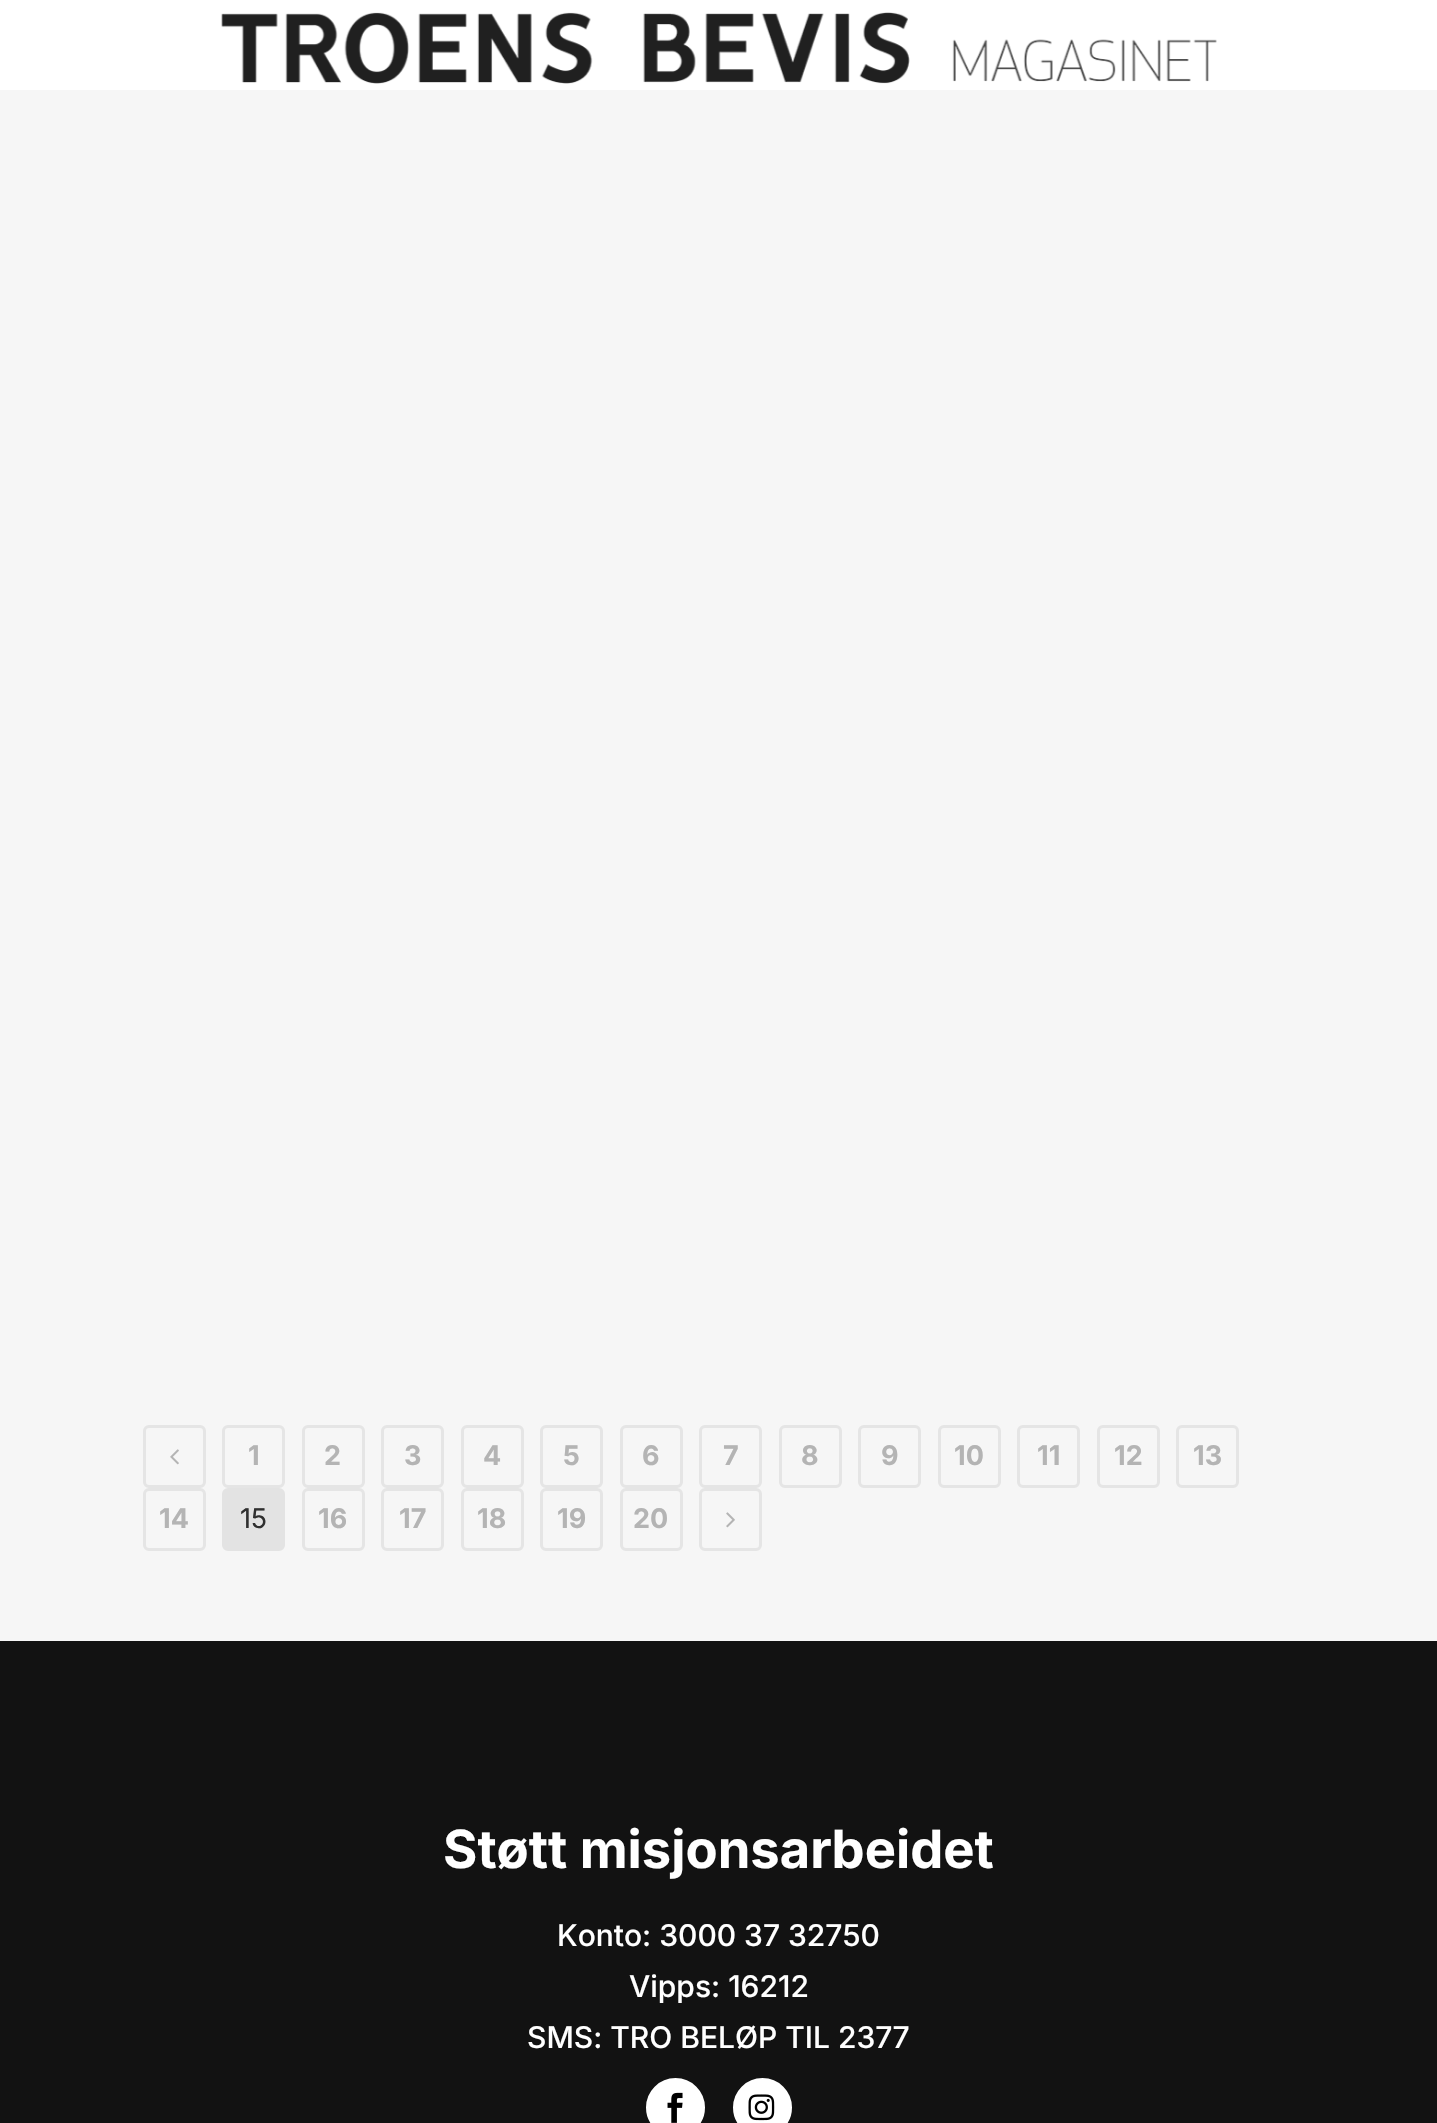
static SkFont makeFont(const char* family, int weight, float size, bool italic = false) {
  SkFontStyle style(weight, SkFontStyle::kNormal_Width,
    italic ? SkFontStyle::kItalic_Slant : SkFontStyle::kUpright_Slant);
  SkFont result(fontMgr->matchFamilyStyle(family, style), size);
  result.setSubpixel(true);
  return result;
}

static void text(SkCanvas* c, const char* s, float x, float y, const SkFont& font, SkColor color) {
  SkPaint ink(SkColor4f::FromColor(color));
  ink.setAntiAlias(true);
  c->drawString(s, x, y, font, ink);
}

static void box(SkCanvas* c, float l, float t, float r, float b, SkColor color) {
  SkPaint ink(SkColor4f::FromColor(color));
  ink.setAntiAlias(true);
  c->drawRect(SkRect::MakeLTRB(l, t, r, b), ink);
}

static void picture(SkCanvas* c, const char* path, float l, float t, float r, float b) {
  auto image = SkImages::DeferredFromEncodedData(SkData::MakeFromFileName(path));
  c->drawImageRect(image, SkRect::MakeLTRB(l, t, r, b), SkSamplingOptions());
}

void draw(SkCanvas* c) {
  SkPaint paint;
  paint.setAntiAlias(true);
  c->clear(0xfff6f6f6);
  box(c, 0, 0, 1437, 90, 0xffffffff);
  picture(c, "img_01.png", 221, 12, 1217, 84);
  paint.setStyle(SkPaint::kStroke_Style);
  paint.setStrokeWidth(3);
  paint.setColor(0xffe5e5e5);
  c->drawRoundRect(SkRect::MakeLTRB(144.5f, 1426.5f, 204.5f, 1486.5f), 4.5f, 4.5f, paint);
  picture(c, "img_02.png", 170, 1449, 179, 1465);
  c->drawRoundRect(SkRect::MakeLTRB(223.5f, 1426.5f, 283.5f, 1486.5f), 4.5f, 4.5f, paint);
  SkFont face1 = makeFont("Inter", 700, 27);
  text(c, "1", 248, 1465, face1, 0xffb4b4b4);
  c->drawRoundRect(SkRect::MakeLTRB(303.5f, 1426.5f, 363.5f, 1486.5f), 4.5f, 4.5f, paint);
  text(c, "2", 324, 1465, face1, 0xffb4b4b4);
  c->drawRoundRect(SkRect::MakeLTRB(382.5f, 1426.5f, 442.5f, 1486.5f), 4.5f, 4.5f, paint);
  text(c, "3", 404, 1465, face1, 0xffb4b4b4);
  c->drawRoundRect(SkRect::MakeLTRB(462.5f, 1426.5f, 522.5f, 1486.5f), 4.5f, 4.5f, paint);
  text(c, "4", 483, 1465, face1, 0xffb4b4b4);
  c->drawRoundRect(SkRect::MakeLTRB(541.5f, 1426.5f, 601.5f, 1486.5f), 4.5f, 4.5f, paint);
  text(c, "5", 563, 1465, face1, 0xffb4b4b4);
  c->drawRoundRect(SkRect::MakeLTRB(621.5f, 1426.5f, 681.5f, 1486.5f), 4.5f, 4.5f, paint);
  text(c, "6", 642, 1465, face1, 0xffb4b4b4);
  c->drawRoundRect(SkRect::MakeLTRB(700.5f, 1426.5f, 760.5f, 1486.5f), 4.5f, 4.5f, paint);
  text(c, "7", 723, 1465, face1, 0xffb4b4b4);
  c->drawRoundRect(SkRect::MakeLTRB(780.5f, 1426.5f, 840.5f, 1486.5f), 4.5f, 4.5f, paint);
  text(c, "8", 801, 1465, face1, 0xffb4b4b4);
  c->drawRoundRect(SkRect::MakeLTRB(859.5f, 1426.5f, 919.5f, 1486.5f), 4.5f, 4.5f, paint);
  text(c, "9", 881, 1465, face1, 0xffb4b4b4);
  c->drawRoundRect(SkRect::MakeLTRB(939.5f, 1426.5f, 999.5f, 1486.5f), 4.5f, 4.5f, paint);
  text(c, "10", 954, 1465, face1, 0xffb4b4b4);
  c->drawRoundRect(SkRect::MakeLTRB(1018.5f, 1426.5f, 1078.5f, 1486.5f), 4.5f, 4.5f, paint);
  text(c, "11", 1037, 1465, face1, 0xffb4b4b4);
  c->drawRoundRect(SkRect::MakeLTRB(1098.5f, 1426.5f, 1158.5f, 1486.5f), 4.5f, 4.5f, paint);
  text(c, "12", 1114, 1465, face1, 0xffb4b4b4);
  c->drawRoundRect(SkRect::MakeLTRB(1177.5f, 1426.5f, 1237.5f, 1486.5f), 4.5f, 4.5f, paint);
  text(c, "13", 1193, 1465, face1, 0xffb4b4b4);
  c->drawRoundRect(SkRect::MakeLTRB(144.5f, 1489.5f, 204.5f, 1549.5f), 4.5f, 4.5f, paint);
  text(c, "14", 159, 1528, face1, 0xffb4b4b4);
  paint.setStyle(SkPaint::kFill_Style);
  paint.setColor(0xffe3e3e3);
  c->drawRoundRect(SkRect::MakeLTRB(223.5f, 1489.5f, 283.5f, 1549.5f), 4.5f, 4.5f, paint);
  paint.setStyle(SkPaint::kStroke_Style);
  c->drawRoundRect(SkRect::MakeLTRB(223.5f, 1489.5f, 283.5f, 1549.5f), 4.5f, 4.5f, paint);
  SkFont face2 = makeFont("Inter", 400, 27);
  text(c, "15", 240, 1528, face2, 0xff303030);
  paint.setColor(0xffe5e5e5);
  c->drawRoundRect(SkRect::MakeLTRB(303.5f, 1489.5f, 363.5f, 1549.5f), 4.5f, 4.5f, paint);
  text(c, "16", 318, 1528, face1, 0xffb4b4b4);
  c->drawRoundRect(SkRect::MakeLTRB(382.5f, 1489.5f, 442.5f, 1549.5f), 4.5f, 4.5f, paint);
  text(c, "17", 399, 1528, face1, 0xffb4b4b4);
  c->drawRoundRect(SkRect::MakeLTRB(462.5f, 1489.5f, 522.5f, 1549.5f), 4.5f, 4.5f, paint);
  text(c, "18", 477, 1528, face1, 0xffb4b4b4);
  c->drawRoundRect(SkRect::MakeLTRB(541.5f, 1489.5f, 601.5f, 1549.5f), 4.5f, 4.5f, paint);
  text(c, "19", 557, 1528, face1, 0xffb4b4b4);
  c->drawRoundRect(SkRect::MakeLTRB(621.5f, 1489.5f, 681.5f, 1549.5f), 4.5f, 4.5f, paint);
  text(c, "20", 633, 1528, face1, 0xffb4b4b4);
  c->drawRoundRect(SkRect::MakeLTRB(700.5f, 1489.5f, 760.5f, 1549.5f), 4.5f, 4.5f, paint);
  picture(c, "img_03.png", 726, 1512, 735, 1528);
  box(c, 0, 1641, 1437, 2123, 0xff121212);
  SkFont face3 = makeFont("Inter", 700, 52.5f);
  text(c, "Støtt misjonsarbeidet", 443, 1868, face3, 0xffffffff);
  SkFont face4 = makeFont("Inter", 500, 30);
  text(c, "Konto: 3000 37 32750", 557, 1946, face4, 0xffffffff);
  text(c, "Vipps: 16212", 629, 1997, face4, 0xffffffff);
  text(c, "SMS: TRO BELØP TIL 2377", 527, 2048, face4, 0xffffffff);
  paint.setStyle(SkPaint::kFill_Style);
  paint.setColor(0xffffffff);
  c->drawCircle(675.5f, 2107.5f, 30.5f, paint);
  paint.setStyle(SkPaint::kStroke_Style);
  paint.setStrokeWidth(2);
  paint.setColor(0xff121212);
  c->drawCircle(675.5f, 2107.5f, 30.5f, paint);
  picture(c, "img_04.png", 667, 2092, 683, 2123);
  paint.setStyle(SkPaint::kFill_Style);
  paint.setColor(0xffffffff);
  c->drawCircle(762.5f, 2107.5f, 30.5f, paint);
  paint.setStyle(SkPaint::kStroke_Style);
  paint.setColor(0xff121212);
  c->drawCircle(762.5f, 2107.5f, 30.5f, paint);
  picture(c, "img_05.png", 748, 2094, 775, 2121);
}
